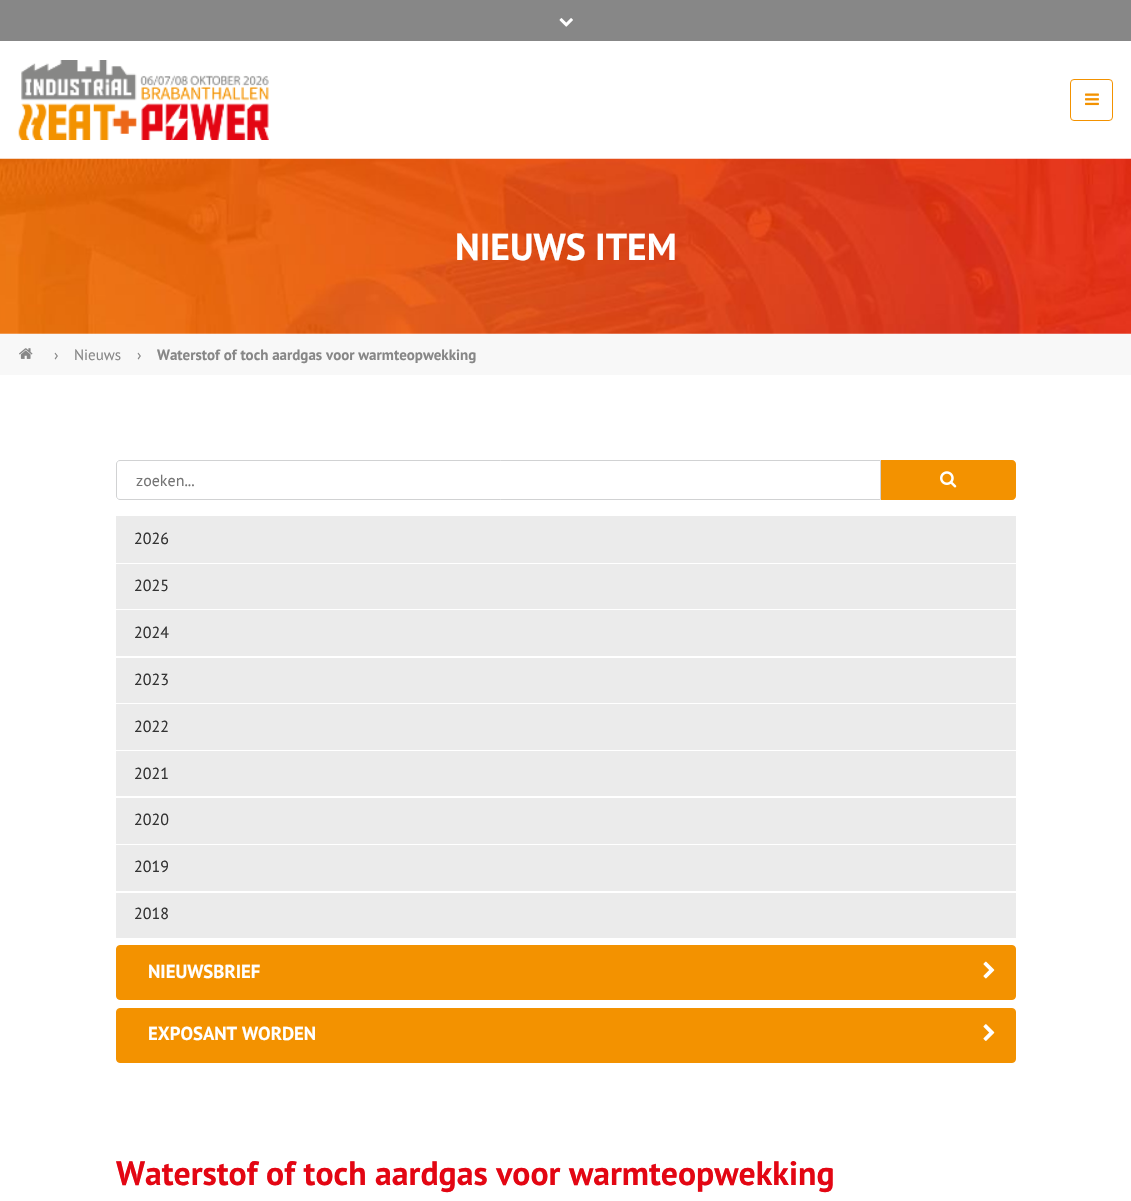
static SkFont makeFont(const char* family, int weight, float size, bool italic = false) {
  SkFontStyle style(weight, SkFontStyle::kNormal_Width,
    italic ? SkFontStyle::kItalic_Slant : SkFontStyle::kUpright_Slant);
  SkFont result(fontMgr->matchFamilyStyle(family, style), size);
  result.setSubpixel(true);
  return result;
}

static void text(SkCanvas* c, const char* s, float x, float y, const SkFont& font, SkColor color) {
  SkPaint ink(SkColor4f::FromColor(color));
  ink.setAntiAlias(true);
  c->drawString(s, x, y, font, ink);
}

static void box(SkCanvas* c, float l, float t, float r, float b, SkColor color) {
  SkPaint ink(SkColor4f::FromColor(color));
  ink.setAntiAlias(true);
  c->drawRect(SkRect::MakeLTRB(l, t, r, b), ink);
}

static void picture(SkCanvas* c, const char* path, float l, float t, float r, float b) {
  auto image = SkImages::DeferredFromEncodedData(SkData::MakeFromFileName(path));
  c->drawImageRect(image, SkRect::MakeLTRB(l, t, r, b), SkSamplingOptions());
}

void draw(SkCanvas* c) {
  SkPaint paint;
  paint.setAntiAlias(true);
  c->clear(0xffffffff);
  box(c, 0, 0, 1131, 41, 0xff878787);
  picture(c, "img_01.png", 559, 18, 573, 27);
  picture(c, "img_02.png", 18, 60, 269, 140);
  paint.setStyle(SkPaint::kStroke_Style);
  paint.setStrokeWidth(1);
  paint.setColor(0xfff39200);
  c->drawRoundRect(SkRect::MakeLTRB(1070.5f, 79.5f, 1112.5f, 120.5f), 3.5f, 3.5f, paint);
  picture(c, "img_03.png", 1085, 93, 1099, 106);
  picture(c, "img_04.png", 0, 158, 1131, 334);
  SkFont face1 = makeFont("PT Sans", 700, 37.5f);
  text(c, "NIEUWS ITEM", 455, 260, face1, 0xffffffff);
  box(c, 0, 334, 1131, 375, 0xfff8f8f8);
  picture(c, "img_05.png", 19, 348, 33, 359);
  SkFont face2 = makeFont("PT Sans", 400, 15);
  text(c, "›", 54, 360, face2, 0xff878787);
  text(c, "Nieuws", 74, 360, face2, 0xff878787);
  text(c, "›", 137, 360, face2, 0xff878787);
  SkFont face3 = makeFont("PT Sans", 700, 15);
  text(c, "Waterstof of toch aardgas voor warmteopwekking", 157, 360, face3, 0xff878787);
  paint.setColor(0xffd1d2d3);
  c->drawPath(SkPathBuilder().moveTo(120, 460.5f).lineTo(880.5f, 460.5f).lineTo(880.5f, 499.5f).lineTo(120, 499.5f).cubicTo(118, 499.5f, 116.5f, 498, 116.5f, 496).lineTo(116.5f, 464).cubicTo(116.5f, 462, 118, 460.5f, 120, 460.5f).close().detach(), paint);
  SkFont face4 = makeFont("PT Sans", 400, 16);
  text(c, "zoeken...", 136, 486, face4, 0xff757575);
  paint.setStyle(SkPaint::kFill_Style);
  paint.setColor(0xfff39200);
  c->drawPath(SkPathBuilder().moveTo(881, 460).lineTo(1012, 460).cubicTo(1014, 460, 1016, 462, 1016, 464).lineTo(1016, 496).cubicTo(1016, 498, 1014, 500, 1012, 500).lineTo(881, 500).close().detach(), paint);
  picture(c, "img_06.png", 940, 471, 957, 488);
  box(c, 116, 516, 1016, 563, 0xffebebeb);
  text(c, "2026", 134, 544, face4, 0xff333333);
  box(c, 116, 564, 1016, 609, 0xffebebeb);
  text(c, "2025", 134, 591, face4, 0xff333333);
  box(c, 116, 610, 1016, 656, 0xffebebeb);
  text(c, "2024", 134, 638, face4, 0xff333333);
  box(c, 116, 658, 1016, 703, 0xffebebeb);
  text(c, "2023", 134, 685, face4, 0xff333333);
  box(c, 116, 704, 1016, 750, 0xffebebeb);
  text(c, "2022", 134, 732, face4, 0xff333333);
  box(c, 116, 751, 1016, 796, 0xffebebeb);
  text(c, "2021", 134, 779, face4, 0xff333333);
  box(c, 116, 798, 1016, 844, 0xffebebeb);
  text(c, "2020", 134, 825, face4, 0xff333333);
  box(c, 116, 845, 1016, 891, 0xffebebeb);
  text(c, "2019", 134, 872, face4, 0xff333333);
  box(c, 116, 893, 1016, 938, 0xffebebeb);
  text(c, "2018", 134, 919, face4, 0xff333333);
  c->drawRoundRect(SkRect::MakeLTRB(116.5f, 945.5f, 1015.5f, 999.5f), 3.5f, 3.5f, paint);
  paint.setStyle(SkPaint::kStroke_Style);
  c->drawRoundRect(SkRect::MakeLTRB(116.5f, 945.5f, 1015.5f, 999.5f), 3.5f, 3.5f, paint);
  SkFont face5 = makeFont("PT Sans", 700, 18.75f);
  text(c, "NIEUWSBRIEF", 148, 978, face5, 0xffffffff);
  picture(c, "img_07.png", 983, 961, 995, 979);
  paint.setStyle(SkPaint::kFill_Style);
  c->drawRoundRect(SkRect::MakeLTRB(116.5f, 1008.5f, 1015.5f, 1062.5f), 3.5f, 3.5f, paint);
  paint.setStyle(SkPaint::kStroke_Style);
  c->drawRoundRect(SkRect::MakeLTRB(116.5f, 1008.5f, 1015.5f, 1062.5f), 3.5f, 3.5f, paint);
  text(c, "EXPOSANT WORDEN", 148, 1040, face5, 0xffffffff);
  picture(c, "img_08.png", 983, 1024, 995, 1041);
  SkFont face6 = makeFont("PT Sans", 700, 33.75f);
  text(c, "Waterstof of toch aardgas voor warmteopwekking", 116, 1185, face6, 0xffe30613);
}
